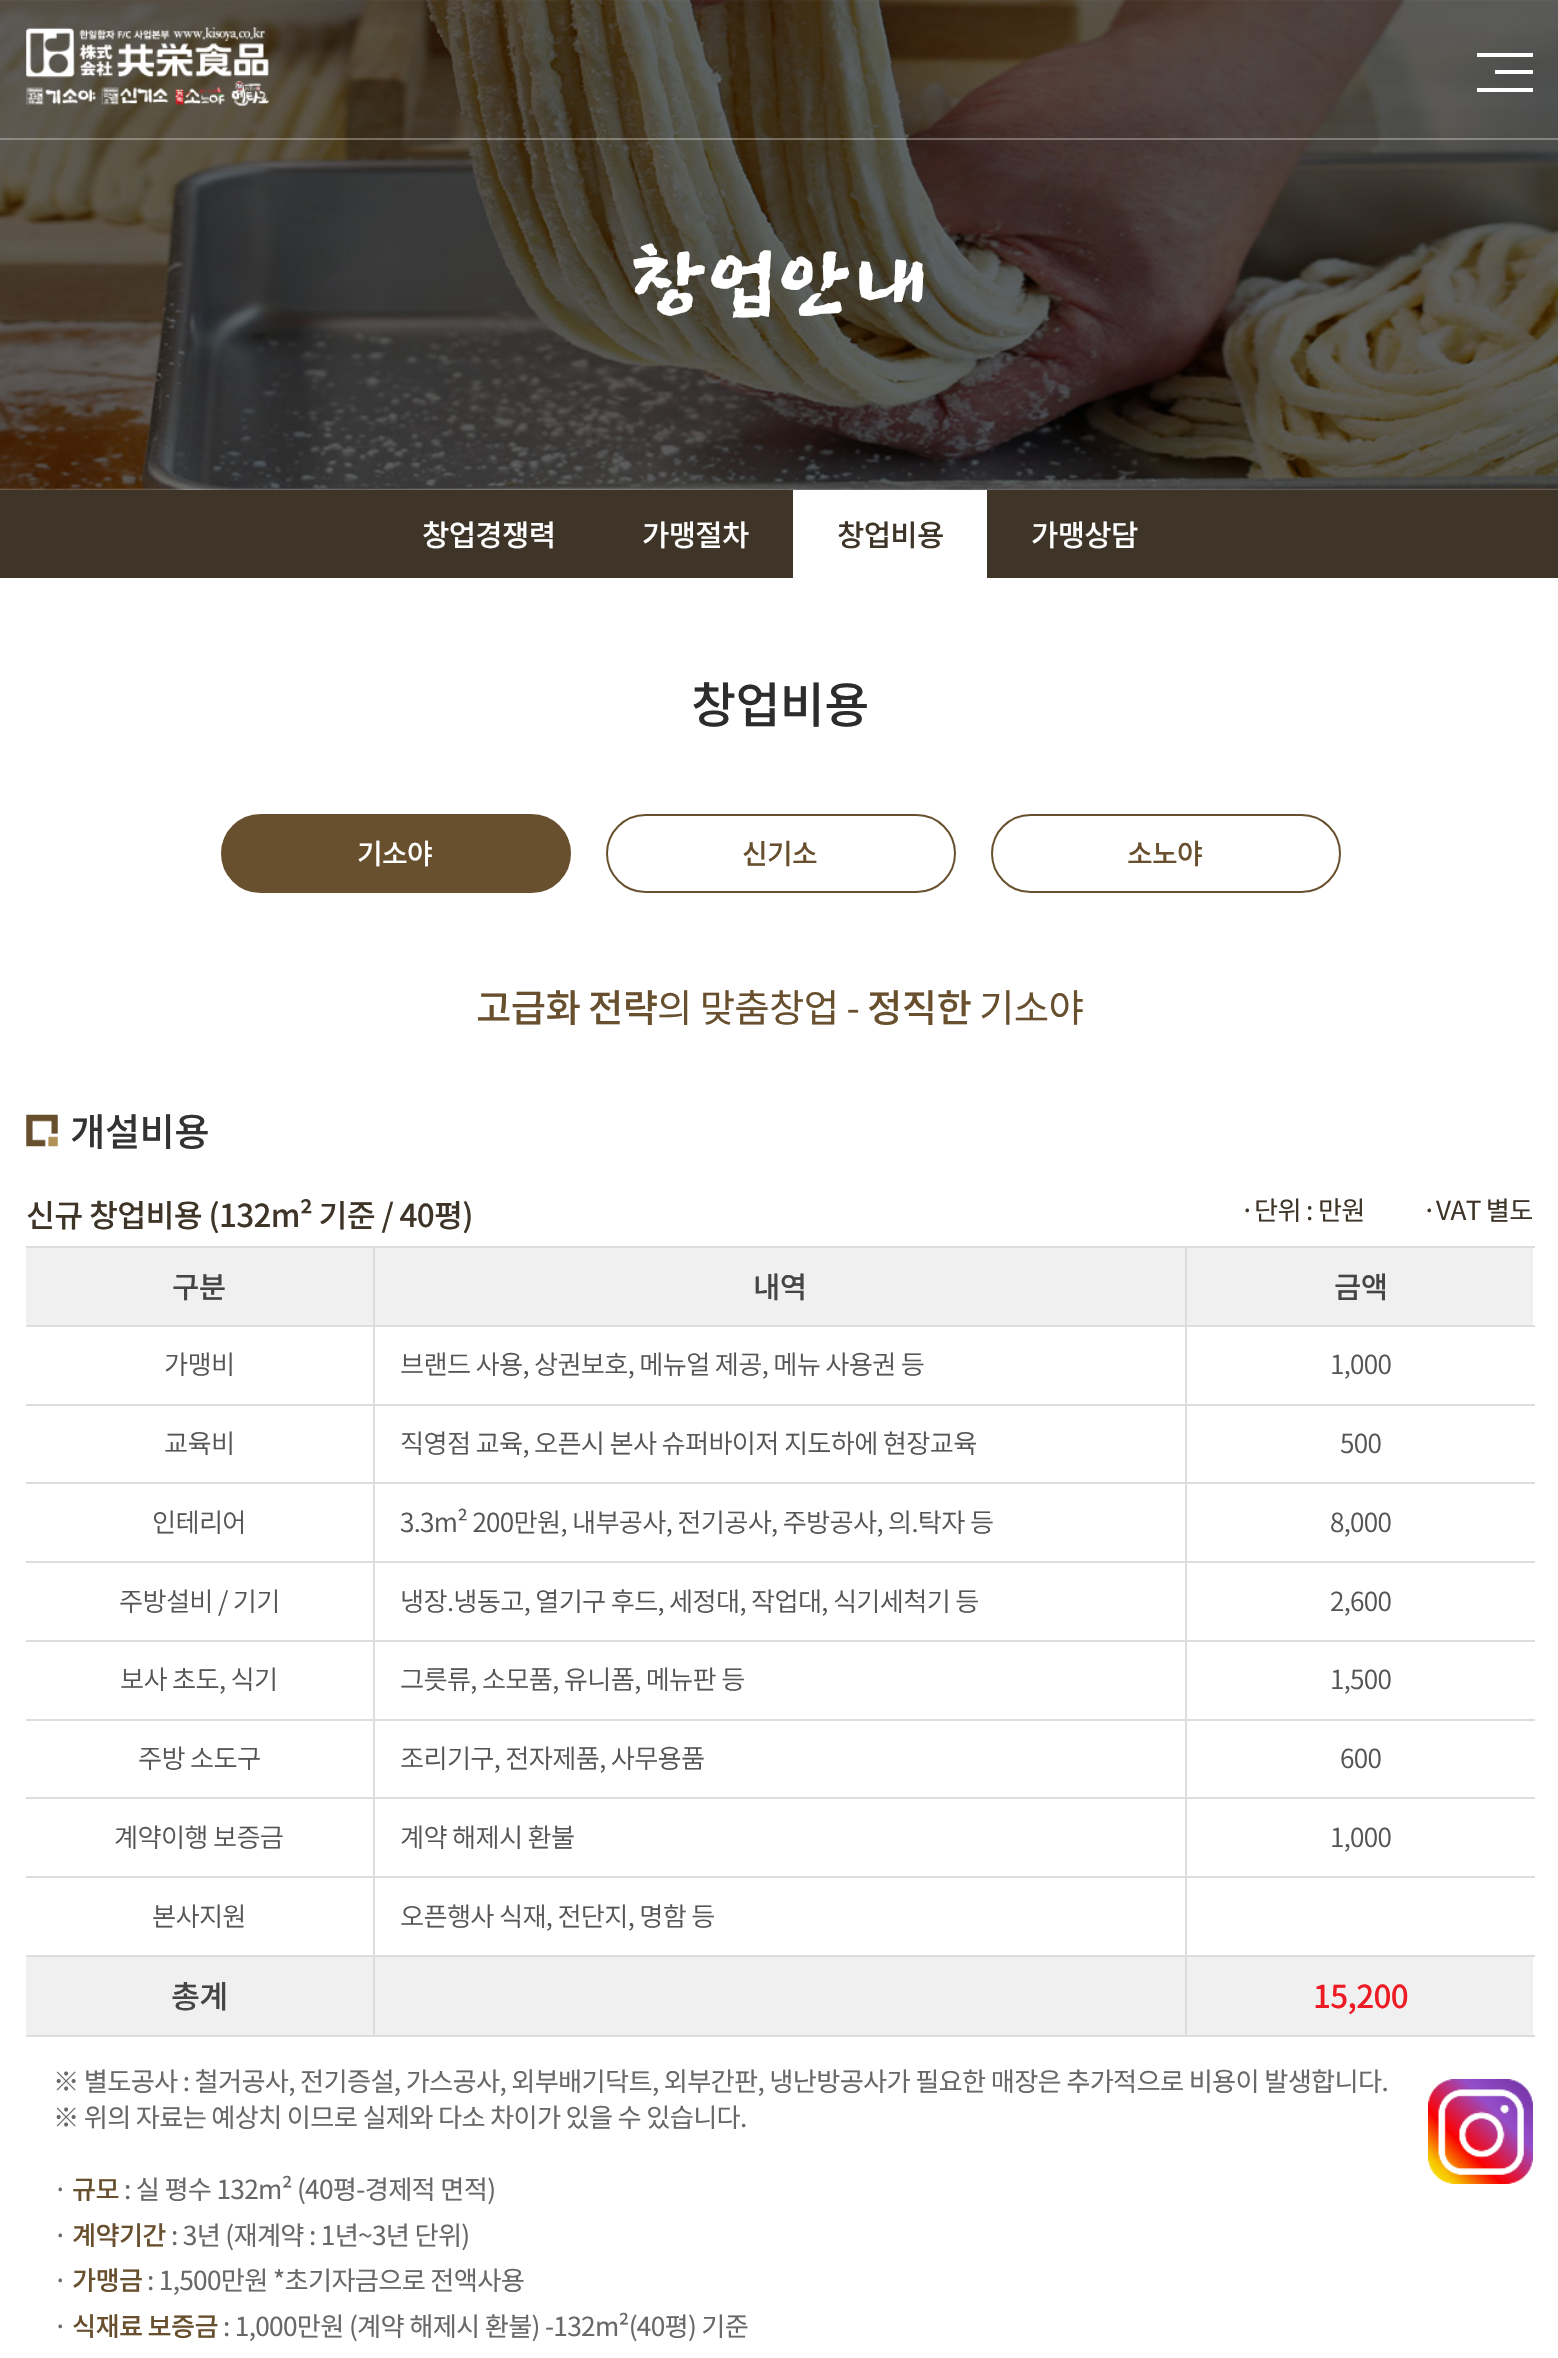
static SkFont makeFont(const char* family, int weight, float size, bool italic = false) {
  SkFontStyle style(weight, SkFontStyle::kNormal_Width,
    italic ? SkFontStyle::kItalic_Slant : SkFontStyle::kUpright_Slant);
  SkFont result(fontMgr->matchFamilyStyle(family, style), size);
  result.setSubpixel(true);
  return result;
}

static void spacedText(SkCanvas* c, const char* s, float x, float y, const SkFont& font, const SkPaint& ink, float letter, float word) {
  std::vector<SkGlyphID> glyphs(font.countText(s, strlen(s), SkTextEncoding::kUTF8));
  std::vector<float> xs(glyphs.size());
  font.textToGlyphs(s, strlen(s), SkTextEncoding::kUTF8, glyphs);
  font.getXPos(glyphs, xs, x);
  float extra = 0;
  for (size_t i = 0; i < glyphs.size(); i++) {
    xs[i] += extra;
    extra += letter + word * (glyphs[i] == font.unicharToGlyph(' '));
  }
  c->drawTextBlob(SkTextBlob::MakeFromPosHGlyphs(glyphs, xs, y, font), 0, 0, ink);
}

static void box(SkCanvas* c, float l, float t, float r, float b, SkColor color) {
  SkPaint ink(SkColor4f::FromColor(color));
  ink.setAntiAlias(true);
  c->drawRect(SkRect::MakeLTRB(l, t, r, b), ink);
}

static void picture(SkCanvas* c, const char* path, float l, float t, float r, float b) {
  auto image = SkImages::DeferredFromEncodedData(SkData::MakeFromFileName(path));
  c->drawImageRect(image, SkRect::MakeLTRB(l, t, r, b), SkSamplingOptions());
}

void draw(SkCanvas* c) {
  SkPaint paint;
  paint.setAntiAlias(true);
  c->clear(0xffffffff);
  picture(c, "img_02.png", 0, 0, 1558, 490);
  box(c, 0, 138, 1558, 140, 0x4dffffff);
  picture(c, "img_01.png", 26, 27, 270, 107);
  box(c, 1495, 70, 1533, 74, 0xffffffff);
  box(c, 1477, 53, 1533, 57, 0xffffffff);
  box(c, 1477, 88, 1533, 92, 0xffffffff);
  SkFont face1 = makeFont("JejuHallasan", 400, 79);
  paint.setColor(0xffffffff);
  spacedText(c, "창업안내", 631, 306, face1, paint, -0.5f, 0);
  box(c, 0, 490, 1558, 578, 0xff3e3528);
  SkFont face2 = makeFont("Noto Sans KR", 500, 29.75f);
  spacedText(c, "창업경쟁력", 422, 546, face2, paint, -0.7f, 0);
  spacedText(c, "가맹절차", 642, 546, face2, paint, -0.7f, 0);
  box(c, 793, 490, 987, 578, 0xffffffff);
  paint.setColor(0xff3e3528);
  spacedText(c, "창업비용", 837, 546, face2, paint, -0.7f, 0);
  paint.setColor(0xffffffff);
  spacedText(c, "가맹상담", 1031, 546, face2, paint, -0.7f, 0);
  SkFont face3 = makeFont("Noto Sans KR", 500, 49);
  paint.setColor(0xff2c2c2c);
  spacedText(c, "창업비용", 691, 723, face3, paint, -0.7f, 0);
  paint.setColor(0xff68502e);
  c->drawRoundRect(SkRect::MakeLTRB(222, 815, 570, 892), 38.5f, 38.5f, paint);
  paint.setStyle(SkPaint::kStroke_Style);
  paint.setStrokeWidth(2);
  c->drawRoundRect(SkRect::MakeLTRB(222, 815, 570, 892), 38.5f, 38.5f, paint);
  SkFont face4 = makeFont("Noto Sans KR", 500, 28);
  paint.setStyle(SkPaint::kFill_Style);
  paint.setColor(0xffffffff);
  spacedText(c, "기소야", 357, 864, face4, paint, -0.7f, 0);
  paint.setStyle(SkPaint::kStroke_Style);
  paint.setColor(0xff68502e);
  c->drawRoundRect(SkRect::MakeLTRB(607, 815, 955, 892), 38.5f, 38.5f, paint);
  paint.setStyle(SkPaint::kFill_Style);
  spacedText(c, "신기소", 742, 864, face4, paint, -0.7f, 0);
  paint.setStyle(SkPaint::kStroke_Style);
  c->drawRoundRect(SkRect::MakeLTRB(992, 815, 1340, 892), 38.5f, 38.5f, paint);
  paint.setStyle(SkPaint::kFill_Style);
  spacedText(c, "소노야", 1127, 864, face4, paint, -0.7f, 0);
  SkFont face5 = makeFont("Noto Sans KR", 500, 38.5f);
  spacedText(c, "고급화 전략", 476, 1022, face5, paint, -0.7f, 0);
  SkFont face6 = makeFont("Noto Sans KR", 400, 38.5f);
  spacedText(c, "의 맞춤창업 -", 657, 1022, face6, paint, -0.7f, 0);
  spacedText(c, "정직한", 867, 1022, face5, paint, -0.7f, 0);
  spacedText(c, "기소야", 979, 1022, face6, paint, -0.7f, 0);
  picture(c, "img_03.png", 26, 1114, 58, 1147);
  paint.setColor(0xff333333);
  spacedText(c, "개설비용", 70, 1146, face5, paint, -0.7f, 0);
  SkFont face7 = makeFont("Noto Sans KR", 500, 31.5f);
  paint.setColor(0xff3e3528);
  spacedText(c, "신규 창업비용 (132m² 기준 / 40평)", 26, 1227, face7, paint, -0.7f, 0);
  SkFont face8 = makeFont("Noto Sans KR", 400, 26.25f);
  spacedText(c, "·단위 : 만원", 1240, 1220, face8, paint, -0.7f, 0);
  spacedText(c, "·VAT 별도", 1422, 1220, face8, paint, -0.7f, 0);
  box(c, 26, 1248, 373, 1325, 0xfff0f0f0);
  box(c, 1185, 1246, 1535, 1248, 0xffdddddd);
  box(c, 1185, 1325, 1535, 1327, 0xffdddddd);
  box(c, 1185, 1404, 1535, 1406, 0xffdddddd);
  box(c, 1185, 1482, 1535, 1484, 0xffdddddd);
  box(c, 1185, 1561, 1535, 1563, 0xffdddddd);
  box(c, 1185, 1640, 1535, 1642, 0xffdddddd);
  box(c, 1185, 1719, 1535, 1721, 0xffdddddd);
  box(c, 1185, 1797, 1535, 1799, 0xffdddddd);
  box(c, 1185, 1876, 1535, 1878, 0xffdddddd);
  box(c, 1185, 1955, 1535, 1957, 0xffdddddd);
  box(c, 1185, 2035, 1535, 2037, 0xffdddddd);
  box(c, 1185, 1955, 1187, 2037, 0xffdddddd);
  box(c, 373, 1955, 1187, 1957, 0xffdddddd);
  box(c, 1185, 1876, 1187, 1957, 0xffdddddd);
  box(c, 373, 1876, 1187, 1878, 0xffdddddd);
  box(c, 1185, 1797, 1187, 1878, 0xffdddddd);
  box(c, 373, 1797, 1187, 1799, 0xffdddddd);
  box(c, 1185, 1719, 1187, 1799, 0xffdddddd);
  box(c, 373, 1719, 1187, 1721, 0xffdddddd);
  box(c, 1185, 1640, 1187, 1720, 0xffdddddd);
  box(c, 373, 1640, 1187, 1642, 0xffdddddd);
  box(c, 1185, 1561, 1187, 1642, 0xffdddddd);
  box(c, 373, 1561, 1187, 1563, 0xffdddddd);
  box(c, 1185, 1482, 1187, 1563, 0xffdddddd);
  box(c, 373, 1482, 1187, 1484, 0xffdddddd);
  box(c, 1185, 1404, 1187, 1484, 0xffdddddd);
  box(c, 373, 1404, 1187, 1406, 0xffdddddd);
  box(c, 1185, 1325, 1187, 1405, 0xffdddddd);
  box(c, 373, 1325, 1187, 1327, 0xffdddddd);
  box(c, 1185, 1246, 1187, 1327, 0xffdddddd);
  box(c, 373, 1246, 1187, 1248, 0xffdddddd);
  box(c, 373, 2035, 1187, 2037, 0xffdddddd);
  box(c, 373, 1955, 375, 2037, 0xffdddddd);
  box(c, 26, 1955, 375, 1957, 0xffdddddd);
  box(c, 373, 1876, 375, 1957, 0xffdddddd);
  box(c, 26, 1876, 375, 1878, 0xffdddddd);
  box(c, 373, 1797, 375, 1878, 0xffdddddd);
  box(c, 26, 1797, 375, 1799, 0xffdddddd);
  box(c, 373, 1719, 375, 1799, 0xffdddddd);
  box(c, 26, 1719, 375, 1721, 0xffdddddd);
  box(c, 373, 1640, 375, 1720, 0xffdddddd);
  box(c, 26, 1640, 375, 1642, 0xffdddddd);
  box(c, 373, 1561, 375, 1642, 0xffdddddd);
  box(c, 26, 1561, 375, 1563, 0xffdddddd);
  box(c, 373, 1482, 375, 1563, 0xffdddddd);
  box(c, 26, 1482, 375, 1484, 0xffdddddd);
  box(c, 373, 1404, 375, 1484, 0xffdddddd);
  box(c, 26, 1404, 375, 1406, 0xffdddddd);
  box(c, 373, 1325, 375, 1405, 0xffdddddd);
  box(c, 26, 1325, 375, 1327, 0xffdddddd);
  box(c, 373, 1246, 375, 1327, 0xffdddddd);
  box(c, 26, 1246, 375, 1248, 0xffdddddd);
  paint.setColor(0xff454545);
  spacedText(c, "구분", 172, 1298, face2, paint, -0.7f, 0);
  box(c, 375, 1248, 1185, 1325, 0xfff0f0f0);
  spacedText(c, "내역", 753, 1298, face2, paint, -0.7f, 0);
  box(c, 1187, 1248, 1533, 1325, 0xfff0f0f0);
  spacedText(c, "금액", 1334, 1298, face2, paint, -0.7f, 0);
  SkFont face9 = makeFont("Noto Sans KR", 300, 26.25f);
  paint.setColor(0xff555555);
  spacedText(c, "가맹비", 164, 1374, face9, paint, -0.7f, 0);
  spacedText(c, "브랜드 사용, 상권보호, 메뉴얼 제공, 메뉴 사용권 등", 400, 1374, face9, paint, -0.7f, 0);
  spacedText(c, "1,000", 1330, 1374, face9, paint, -0.7f, 0);
  spacedText(c, "교육비", 164, 1453, face9, paint, -0.7f, 0);
  spacedText(c, "직영점 교육, 오픈시 본사 슈퍼바이저 지도하에 현장교육", 400, 1453, face9, paint, -0.7f, 0);
  spacedText(c, "500", 1340, 1453, face9, paint, -0.7f, 0);
  spacedText(c, "인테리어", 152, 1532, face9, paint, -0.7f, 0);
  spacedText(c, "3.3m² 200만원, 내부공사, 전기공사, 주방공사, 의.탁자 등", 400, 1532, face9, paint, -0.7f, 0);
  spacedText(c, "8,000", 1330, 1532, face9, paint, -0.7f, 0);
  spacedText(c, "주방설비 / 기기", 119, 1611, face9, paint, -0.7f, 0);
  spacedText(c, "냉장.냉동고, 열기구 후드, 세정대, 작업대, 식기세척기 등", 400, 1611, face9, paint, -0.7f, 0);
  spacedText(c, "2,600", 1330, 1611, face9, paint, -0.7f, 0);
  spacedText(c, "보사 초도, 식기", 120, 1689, face9, paint, -0.7f, 0);
  spacedText(c, "그릇류, 소모품, 유니폼, 메뉴판 등", 400, 1689, face9, paint, -0.7f, 0);
  spacedText(c, "1,500", 1330, 1689, face9, paint, -0.7f, 0);
  spacedText(c, "주방 소도구", 138, 1768, face9, paint, -0.7f, 0);
  spacedText(c, "조리기구, 전자제품, 사무용품", 400, 1768, face9, paint, -0.7f, 0);
  spacedText(c, "600", 1340, 1768, face9, paint, -0.7f, 0);
  spacedText(c, "계약이행 보증금", 114, 1847, face9, paint, -0.7f, 0);
  spacedText(c, "계약 해제시 환불", 400, 1847, face9, paint, -0.7f, 0);
  spacedText(c, "1,000", 1330, 1847, face9, paint, -0.7f, 0);
  spacedText(c, "본사지원", 152, 1926, face9, paint, -0.7f, 0);
  spacedText(c, "오픈행사 식재, 전단지, 명함 등", 400, 1926, face9, paint, -0.7f, 0);
  box(c, 26, 1957, 373, 2035, 0xfff0f0f0);
  box(c, 26, 2035, 375, 2037, 0xffdddddd);
  paint.setColor(0xff454545);
  spacedText(c, "총계", 171, 2008, face7, paint, -0.7f, 0);
  box(c, 375, 1957, 1185, 2035, 0xfff0f0f0);
  box(c, 1187, 1957, 1533, 2035, 0xfff0f0f0);
  paint.setColor(0xffed1c24);
  spacedText(c, "15,200", 1313, 2008, face7, paint, -0.7f, 0);
  paint.setColor(0xff686868);
  spacedText(c, "※ 별도공사 : 철거공사, 전기증설, 가스공사, 외부배기닥트, 외부간판, 냉난방공사가 필요한 매장은 추가적으로 비용이 발생합니다.", 53, 2091, face8, paint, -0.7f, 0);
  spacedText(c, "※ 위의 자료는 예상치 이므로 실제와 다소 차이가 있을 수 있습니다.", 53, 2127, face8, paint, -0.7f, 0);
  spacedText(c, "·", 53, 2199, face8, paint, -0.7f, 0);
  SkFont face10 = makeFont("Noto Sans KR", 500, 26.25f);
  paint.setColor(0xff68502e);
  spacedText(c, "규모", 72, 2199, face10, paint, -0.7f, 0);
  paint.setColor(0xff686868);
  spacedText(c, ": 실 평수 132m² (40평-경제적 면적)", 124, 2199, face8, paint, -0.7f, 0);
  spacedText(c, "·", 53, 2245, face8, paint, -0.7f, 0);
  paint.setColor(0xff68502e);
  spacedText(c, "계약기간", 72, 2245, face10, paint, -0.7f, 0);
  paint.setColor(0xff686868);
  spacedText(c, ": 3년 (재계약 : 1년~3년 단위)", 171, 2245, face8, paint, -0.7f, 0);
  spacedText(c, "·", 53, 2290, face8, paint, -0.7f, 0);
  paint.setColor(0xff68502e);
  spacedText(c, "가맹금", 72, 2290, face10, paint, -0.7f, 0);
  paint.setColor(0xff686868);
  spacedText(c, ": 1,500만원 *초기자금으로 전액사용", 147, 2290, face8, paint, -0.7f, 0);
  spacedText(c, "·", 53, 2336, face8, paint, -0.7f, 0);
  paint.setColor(0xff68502e);
  spacedText(c, "식재료 보증금", 72, 2336, face10, paint, -0.7f, 0);
  paint.setColor(0xff686868);
  spacedText(c, ": 1,000만원 (계약 해제시 환불) -132m²(40평) 기준", 223, 2336, face8, paint, -0.7f, 0);
  picture(c, "img_04.png", 1428, 2079, 1533, 2184);
}
